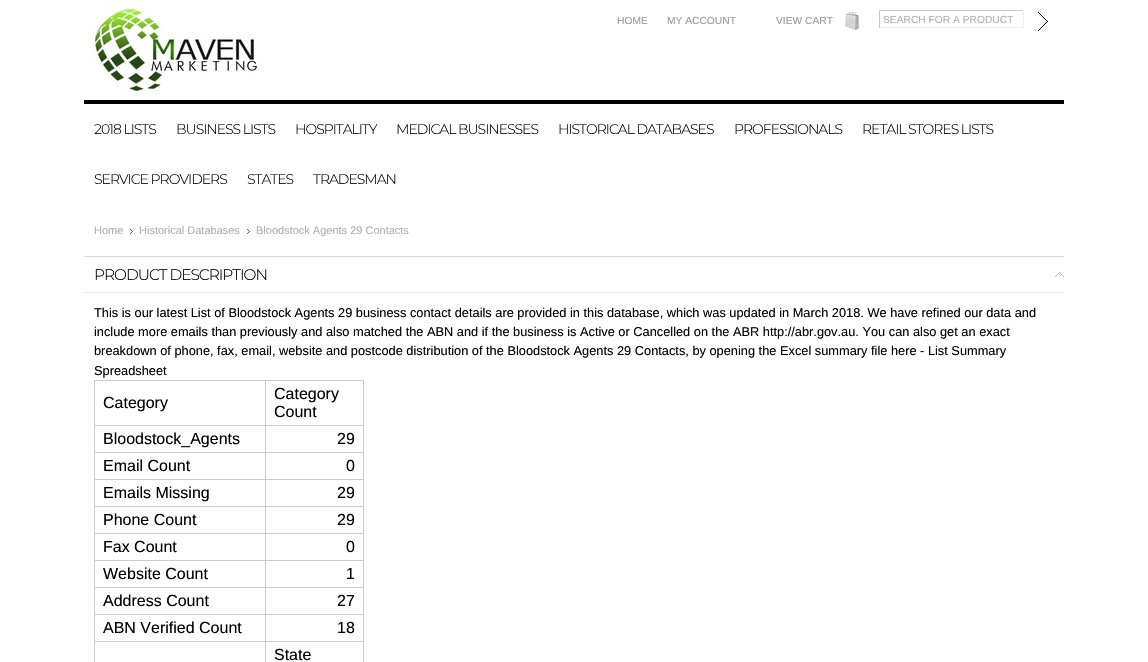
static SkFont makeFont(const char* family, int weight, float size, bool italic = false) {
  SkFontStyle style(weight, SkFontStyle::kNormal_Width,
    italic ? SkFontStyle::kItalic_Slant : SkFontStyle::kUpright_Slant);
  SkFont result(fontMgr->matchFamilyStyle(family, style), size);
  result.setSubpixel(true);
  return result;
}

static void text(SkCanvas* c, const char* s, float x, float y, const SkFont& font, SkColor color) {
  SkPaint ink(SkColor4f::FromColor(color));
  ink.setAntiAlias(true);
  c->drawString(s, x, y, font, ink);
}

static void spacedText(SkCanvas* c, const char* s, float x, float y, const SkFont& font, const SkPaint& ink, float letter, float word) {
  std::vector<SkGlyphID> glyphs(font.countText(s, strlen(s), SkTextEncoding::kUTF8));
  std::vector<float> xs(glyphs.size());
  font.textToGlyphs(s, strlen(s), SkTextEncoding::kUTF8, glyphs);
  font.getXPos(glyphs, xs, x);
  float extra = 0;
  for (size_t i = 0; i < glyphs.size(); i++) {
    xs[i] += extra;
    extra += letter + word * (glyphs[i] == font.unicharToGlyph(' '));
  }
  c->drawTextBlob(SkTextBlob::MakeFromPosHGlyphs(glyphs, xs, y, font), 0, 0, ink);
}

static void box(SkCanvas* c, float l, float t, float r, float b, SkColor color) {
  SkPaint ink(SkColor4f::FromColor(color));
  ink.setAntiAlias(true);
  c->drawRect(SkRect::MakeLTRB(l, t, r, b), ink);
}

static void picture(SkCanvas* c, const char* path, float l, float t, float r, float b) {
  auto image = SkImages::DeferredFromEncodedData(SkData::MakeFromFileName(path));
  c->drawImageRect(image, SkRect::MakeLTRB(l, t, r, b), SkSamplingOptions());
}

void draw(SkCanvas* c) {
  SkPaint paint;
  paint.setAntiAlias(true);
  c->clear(0xffffffff);
  picture(c, "img_01.png", 86, 0, 258, 94);
  SkFont face1 = makeFont("Liberation Sans", 400, 10.25f);
  text(c, "HOME", 617, 24, face1, 0xff999999);
  text(c, "MY ACCOUNT", 667, 24, face1, 0xff999999);
  picture(c, "img_02.png", 845, 12, 859, 30);
  text(c, "VIEW CART", 776, 24, face1, 0xff999999);
  box(c, 879, 10, 1024, 11, 0xffc8c8c8);
  box(c, 1023, 10, 1024, 28, 0xfff0f0f0);
  box(c, 879, 27, 1024, 28, 0xfff0f0f0);
  box(c, 879, 10, 880, 28, 0xffc8c8c8);
  text(c, "SEARCH FOR A PRODUCT", 883, 23, face1, 0xffb0b0b0);
  picture(c, "img_03.png", 1038, 12, 1048, 31);
  box(c, 84, 100, 1064, 104, 0xff000000);
  SkFont face2 = makeFont("Montserrat", 300, 14);
  paint.setColor(0xff000000);
  spacedText(c, "2018 LISTS", 94, 134, face2, paint, -1, 0);
  spacedText(c, "BUSINESS LISTS", 176, 134, face2, paint, -1, 0);
  spacedText(c, "HOSPITALITY", 295, 134, face2, paint, -1, 0);
  spacedText(c, "MEDICAL BUSINESSES", 396, 134, face2, paint, -1, 0);
  spacedText(c, "HISTORICAL DATABASES", 558, 134, face2, paint, -1, 0);
  spacedText(c, "PROFESSIONALS", 734, 134, face2, paint, -1, 0);
  spacedText(c, "RETAIL STORES LISTS", 862, 134, face2, paint, -1, 0);
  spacedText(c, "SERVICE PROVIDERS", 94, 184, face2, paint, -1, 0);
  spacedText(c, "STATES", 247, 184, face2, paint, -1, 0);
  spacedText(c, "TRADESMAN", 313, 184, face2, paint, -1, 0);
  SkFont face3 = makeFont("Liberation Sans", 400, 11);
  text(c, "Home", 94, 234, face3, 0xffb0b0b0);
  picture(c, "img_04.png", 130, 229, 133, 234);
  text(c, "Historical Databases", 139, 234, face3, 0xffb0b0b0);
  picture(c, "img_04.png", 247, 229, 250, 234);
  text(c, "Bloodstock Agents 29 Contacts", 256, 234, face3, 0xffb0b0b0);
  picture(c, "img_05.png", 1055, 272, 1064, 277);
  box(c, 84, 256, 1064, 257, 0xffdadada);
  SkFont face4 = makeFont("Montserrat", 300, 15.4f);
  spacedText(c, "PRODUCT DESCRIPTION", 94, 280, face4, paint, -1, 0);
  box(c, 84, 292, 1064, 293, 0xffeaeaea);
  SkFont face5 = makeFont("Liberation Sans", 400, 12.8f);
  text(c, "This is our latest List of Bloodstock Agents 29 business contact details are provided in this database, which was updated in March 2018. We have refined our data and", 94, 317, face5, 0xff000000);
  text(c, "include more emails than previously and also matched the ABN and if the business is Active or Cancelled on the ABR http://abr.gov.au. You can also get an exact", 94, 336, face5, 0xff000000);
  text(c, "breakdown of phone, fax, email, website and postcode distribution of the Bloodstock Agents 29 Contacts, by opening the Excel summary file here - List Summary", 94, 355, face5, 0xff000000);
  text(c, "Spreadsheet", 94, 375, face5, 0xff000000);
  box(c, 265, 380, 364, 381, 0xffcccccc);
  box(c, 265, 425, 364, 426, 0xffcccccc);
  box(c, 265, 452, 364, 453, 0xffcccccc);
  box(c, 265, 479, 364, 480, 0xffcccccc);
  box(c, 265, 506, 364, 507, 0xffcccccc);
  box(c, 265, 533, 364, 534, 0xffcccccc);
  box(c, 265, 560, 364, 561, 0xffcccccc);
  box(c, 265, 587, 364, 588, 0xffcccccc);
  box(c, 265, 614, 364, 615, 0xffcccccc);
  box(c, 265, 641, 364, 642, 0xffcccccc);
  box(c, 265, 641, 266, 662, 0xffcccccc);
  box(c, 94, 641, 266, 642, 0xffcccccc);
  box(c, 265, 614, 266, 642, 0xffcccccc);
  box(c, 94, 614, 266, 615, 0xffcccccc);
  box(c, 265, 587, 266, 615, 0xffcccccc);
  box(c, 94, 587, 266, 588, 0xffcccccc);
  box(c, 265, 560, 266, 588, 0xffcccccc);
  box(c, 94, 560, 266, 561, 0xffcccccc);
  box(c, 265, 533, 266, 561, 0xffcccccc);
  box(c, 94, 533, 266, 534, 0xffcccccc);
  box(c, 265, 506, 266, 534, 0xffcccccc);
  box(c, 94, 506, 266, 507, 0xffcccccc);
  box(c, 265, 479, 266, 507, 0xffcccccc);
  box(c, 94, 479, 266, 480, 0xffcccccc);
  box(c, 265, 452, 266, 480, 0xffcccccc);
  box(c, 94, 452, 266, 453, 0xffcccccc);
  box(c, 265, 425, 266, 453, 0xffcccccc);
  box(c, 94, 425, 266, 426, 0xffcccccc);
  box(c, 265, 380, 266, 426, 0xffcccccc);
  box(c, 94, 380, 266, 381, 0xffcccccc);
  box(c, 94, 641, 95, 662, 0xffcccccc);
  box(c, 94, 614, 95, 642, 0xffcccccc);
  box(c, 94, 587, 95, 615, 0xffcccccc);
  box(c, 94, 560, 95, 588, 0xffcccccc);
  box(c, 94, 533, 95, 561, 0xffcccccc);
  box(c, 94, 506, 95, 534, 0xffcccccc);
  box(c, 94, 479, 95, 507, 0xffcccccc);
  box(c, 94, 452, 95, 480, 0xffcccccc);
  box(c, 94, 425, 95, 453, 0xffcccccc);
  box(c, 94, 380, 95, 426, 0xffcccccc);
  SkFont face6 = makeFont("Liberation Sans", 400, 16);
  text(c, "Category", 103, 408, face6, 0xff000000);
  box(c, 363, 641, 364, 662, 0xffcccccc);
  box(c, 363, 614, 364, 642, 0xffcccccc);
  box(c, 363, 587, 364, 615, 0xffcccccc);
  box(c, 363, 560, 364, 588, 0xffcccccc);
  box(c, 363, 533, 364, 561, 0xffcccccc);
  box(c, 363, 506, 364, 534, 0xffcccccc);
  box(c, 363, 479, 364, 507, 0xffcccccc);
  box(c, 363, 452, 364, 480, 0xffcccccc);
  box(c, 363, 425, 364, 453, 0xffcccccc);
  box(c, 363, 380, 364, 426, 0xffcccccc);
  text(c, "Category", 274, 399, face6, 0xff000000);
  text(c, "Count", 274, 417, face6, 0xff000000);
  text(c, "Bloodstock_Agents", 103, 444, face6, 0xff000000);
  text(c, "29", 337, 444, face6, 0xff000000);
  text(c, "Email Count", 103, 471, face6, 0xff000000);
  text(c, "0", 346, 471, face6, 0xff000000);
  text(c, "Emails Missing", 103, 498, face6, 0xff000000);
  text(c, "29", 337, 498, face6, 0xff000000);
  text(c, "Phone Count", 103, 525, face6, 0xff000000);
  text(c, "29", 337, 525, face6, 0xff000000);
  text(c, "Fax Count", 103, 552, face6, 0xff000000);
  text(c, "0", 346, 552, face6, 0xff000000);
  text(c, "Website Count", 103, 579, face6, 0xff000000);
  text(c, "1", 346, 579, face6, 0xff000000);
  text(c, "Address Count", 103, 606, face6, 0xff000000);
  text(c, "27", 337, 606, face6, 0xff000000);
  text(c, "ABN Verified Count", 103, 633, face6, 0xff000000);
  text(c, "18", 337, 633, face6, 0xff000000);
  text(c, "State", 274, 660, face6, 0xff000000);
}
